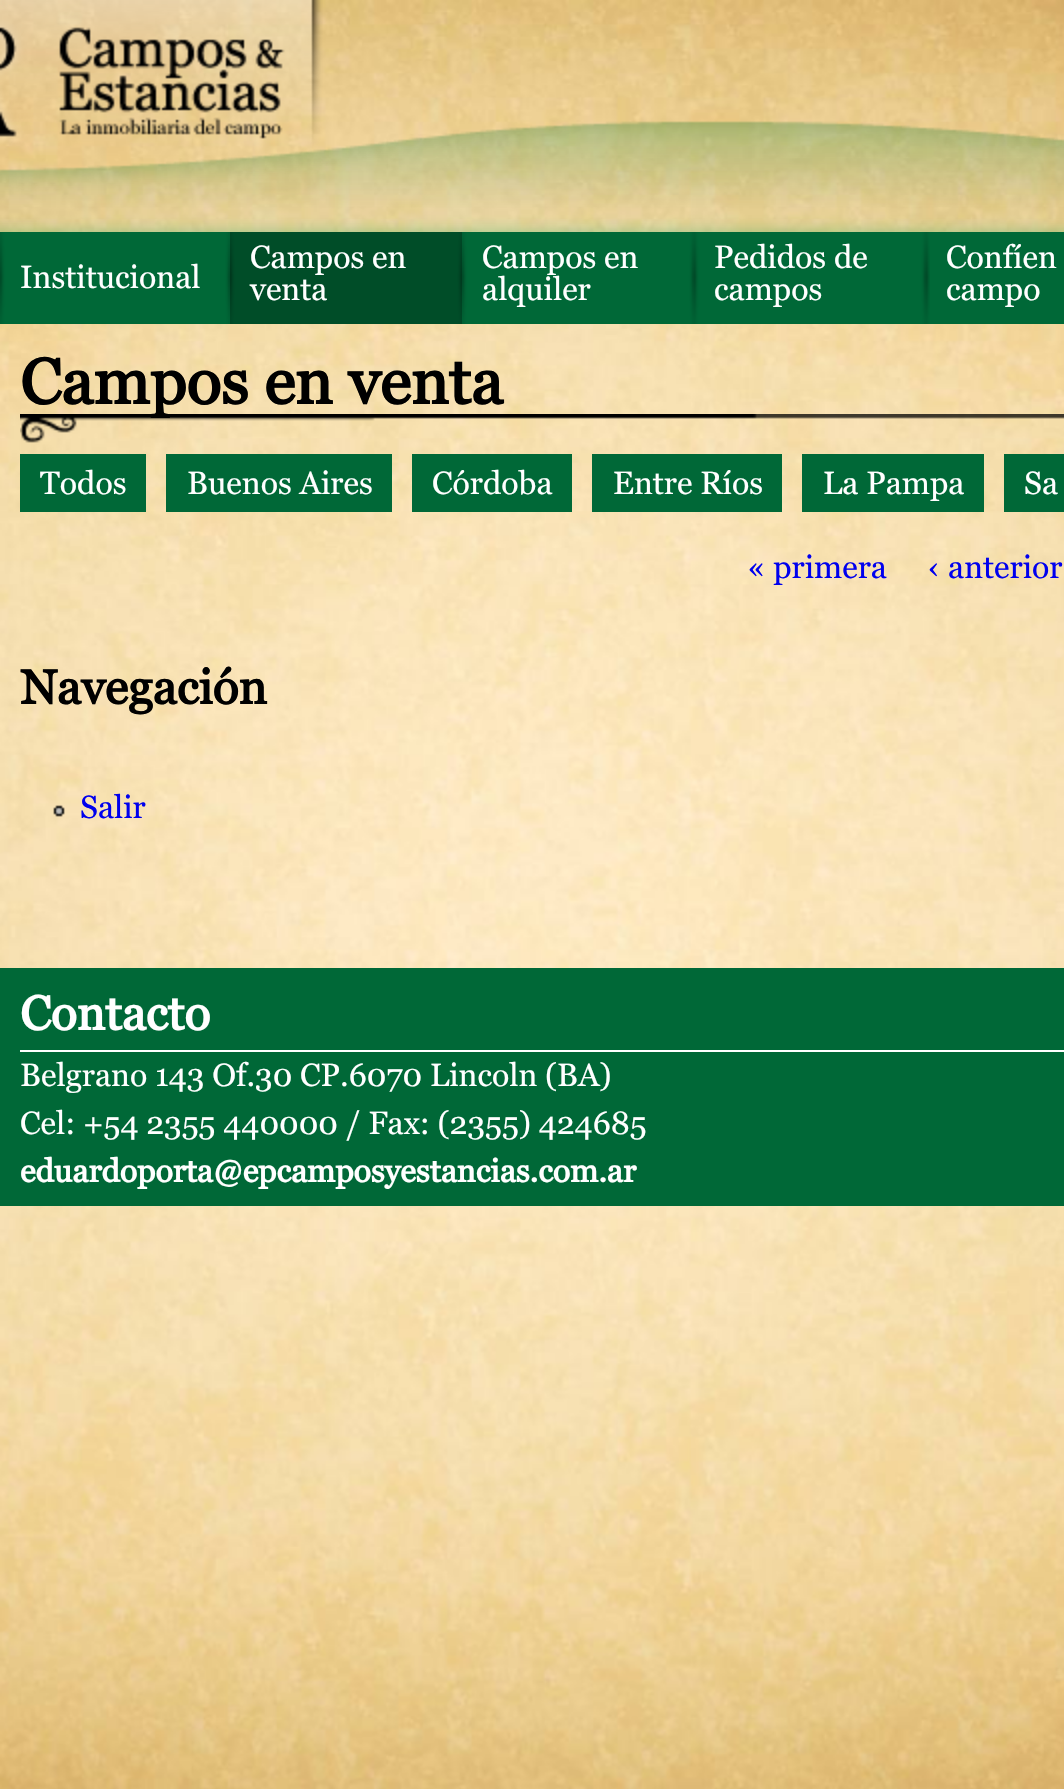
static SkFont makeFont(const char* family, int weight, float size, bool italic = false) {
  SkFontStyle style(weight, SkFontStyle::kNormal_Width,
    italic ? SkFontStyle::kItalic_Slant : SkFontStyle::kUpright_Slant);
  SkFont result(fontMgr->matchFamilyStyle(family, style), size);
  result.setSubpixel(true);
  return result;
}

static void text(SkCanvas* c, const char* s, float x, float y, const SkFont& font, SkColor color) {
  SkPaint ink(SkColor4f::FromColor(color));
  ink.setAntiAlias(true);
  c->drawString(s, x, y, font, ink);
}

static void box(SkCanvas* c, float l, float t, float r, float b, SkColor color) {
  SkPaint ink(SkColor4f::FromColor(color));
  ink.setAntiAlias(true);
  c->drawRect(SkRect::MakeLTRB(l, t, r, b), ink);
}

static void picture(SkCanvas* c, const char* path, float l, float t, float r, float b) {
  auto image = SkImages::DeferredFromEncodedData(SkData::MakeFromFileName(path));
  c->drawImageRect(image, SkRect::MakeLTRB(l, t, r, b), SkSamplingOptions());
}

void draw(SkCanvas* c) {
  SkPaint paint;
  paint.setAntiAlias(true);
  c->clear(0xffffffff);
  picture(c, "img_01.png", 0, 0, 1064, 1789);
  picture(c, "img_02.png", 0, 0, 1064, 232);
  box(c, 0, 232, 1064, 324, 0xff006837);
  picture(c, "img_03.png", 0, 232, 230, 324);
  SkFont face1 = makeFont("Georgia", 400, 32);
  text(c, "Institucional", 20, 288, face1, 0xffffffff);
  box(c, 230, 232, 462, 324, 0xff004d28);
  picture(c, "img_04.png", 230, 232, 462, 324);
  text(c, "Campos en", 250, 268, face1, 0xffffffff);
  text(c, "venta", 250, 300, face1, 0xffffffff);
  picture(c, "img_05.png", 462, 232, 694, 324);
  text(c, "Campos en", 482, 268, face1, 0xffffffff);
  text(c, "alquiler", 482, 300, face1, 0xffffffff);
  picture(c, "img_05.png", 694, 232, 926, 324);
  text(c, "Pedidos de", 714, 268, face1, 0xffffffff);
  text(c, "campos", 714, 300, face1, 0xffffffff);
  picture(c, "img_06.png", 926, 232, 930, 324);
  text(c, "Confíen", 946, 268, face1, 0xffffffff);
  text(c, "campo", 946, 300, face1, 0xffffffff);
  picture(c, "img_07.png", 20, 414, 1064, 443);
  SkFont face2 = makeFont("Georgia", 700, 64);
  text(c, "Campos en venta", 20, 404, face2, 0xff000000);
  box(c, 20, 454, 146, 512, 0xff006837);
  text(c, "Todos", 40, 494, face1, 0xffffffff);
  box(c, 166, 454, 392, 512, 0xff006837);
  text(c, "Buenos Aires", 187, 494, face1, 0xffffffff);
  box(c, 412, 454, 572, 512, 0xff006837);
  text(c, "Córdoba", 432, 494, face1, 0xffffffff);
  box(c, 592, 454, 782, 512, 0xff006837);
  text(c, "Entre Ríos", 613, 494, face1, 0xffffffff);
  box(c, 802, 454, 984, 512, 0xff006837);
  text(c, "La Pampa", 823, 494, face1, 0xffffffff);
  box(c, 1004, 454, 1064, 512, 0xff006837);
  text(c, "Sa", 1024, 494, face1, 0xffffffff);
  text(c, "« primera", 747, 578, face1, 0xff0000ee);
  text(c, "‹ anterior", 927, 578, face1, 0xff0000ee);
  SkFont face3 = makeFont("Georgia", 700, 48);
  text(c, "Navegación", 20, 704, face3, 0xff000000);
  picture(c, "img_08.png", 53, 805, 65, 817);
  text(c, "Salir", 80, 818, face1, 0xff0000ee);
  box(c, 0, 968, 1064, 1206, 0xff006837);
  box(c, 20, 1050, 1064, 1052, 0xffffffff);
  text(c, "Contacto", 20, 1030, face3, 0xffffffff);
  text(c, "Belgrano 143 Of.30 CP.6070 Lincoln (BA)", 20, 1086, face1, 0xffffffff);
  text(c, "Cel: +54 2355 440000 / Fax: (2355) 424685", 20, 1134, face1, 0xffffffff);
  SkFont face4 = makeFont("Georgia", 700, 32);
  text(c, "eduardoporta@epcamposyestancias.com.ar", 20, 1182, face4, 0xffffffff);
}
